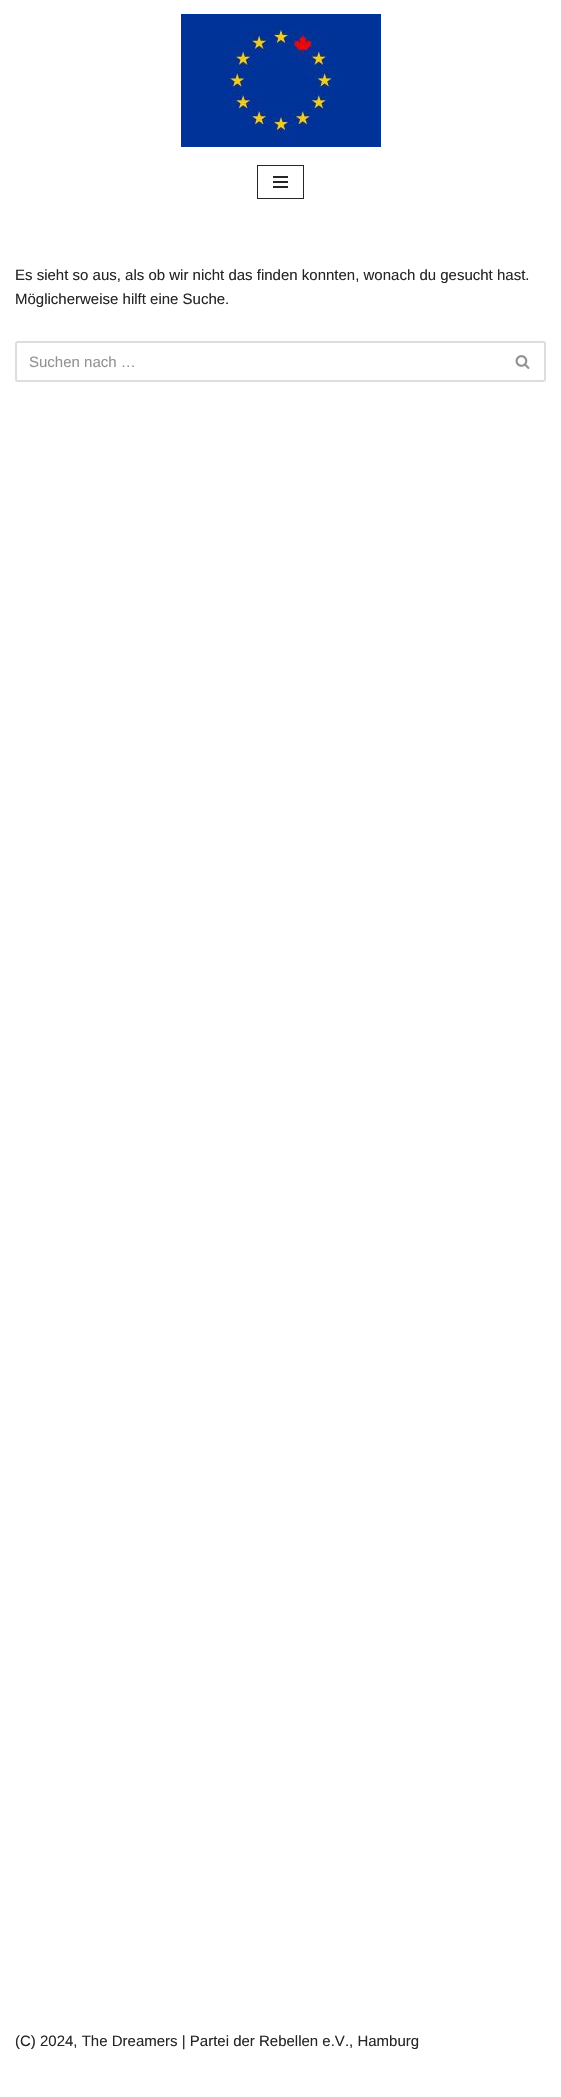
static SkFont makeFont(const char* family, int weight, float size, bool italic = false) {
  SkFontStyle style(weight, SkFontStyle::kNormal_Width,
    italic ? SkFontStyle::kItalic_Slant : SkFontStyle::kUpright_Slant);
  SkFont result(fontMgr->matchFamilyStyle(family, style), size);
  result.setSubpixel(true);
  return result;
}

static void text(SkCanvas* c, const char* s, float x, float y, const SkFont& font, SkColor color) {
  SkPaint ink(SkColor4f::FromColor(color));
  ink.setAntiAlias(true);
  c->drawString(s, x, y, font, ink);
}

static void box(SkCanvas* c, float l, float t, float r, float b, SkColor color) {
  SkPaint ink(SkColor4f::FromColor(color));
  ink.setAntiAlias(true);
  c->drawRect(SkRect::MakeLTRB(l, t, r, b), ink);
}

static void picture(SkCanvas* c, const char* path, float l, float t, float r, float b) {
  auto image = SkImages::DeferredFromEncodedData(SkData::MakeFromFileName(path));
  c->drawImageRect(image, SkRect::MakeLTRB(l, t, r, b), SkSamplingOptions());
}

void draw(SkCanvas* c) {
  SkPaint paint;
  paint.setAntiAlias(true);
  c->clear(0xffffffff);
  picture(c, "img_01.png", 181, 14, 381, 147);
  paint.setStyle(SkPaint::kStroke_Style);
  paint.setStrokeWidth(1);
  paint.setColor(0xff272626);
  c->drawRect(SkRect::MakeLTRB(257.5f, 165.5f, 303.5f, 198.5f), paint);
  box(c, 273, 176, 288, 178, 0xff272626);
  box(c, 273, 181, 288, 183, 0xff272626);
  box(c, 273, 186, 288, 188, 0xff272626);
  SkFont face1 = makeFont("Liberation Sans", 400, 15);
  text(c, "Es sieht so aus, als ob wir nicht das finden konnten, wonach du gesucht hast.", 15, 280, face1, 0xff272626);
  text(c, "Möglicherweise hilft eine Suche.", 15, 304, face1, 0xff272626);
  paint.setStyle(SkPaint::kFill_Style);
  paint.setColor(0xffdddddd);
  c->drawPath(SkPathBuilder(SkPathFillType::kEvenOdd).moveTo(18, 341).lineTo(501, 341).lineTo(501, 382).lineTo(18, 382).cubicTo(16, 382, 15, 381, 15, 379).lineTo(15, 344).cubicTo(15, 342, 16, 341, 18, 341).close().moveTo(18, 343).lineTo(501, 343).lineTo(501, 380).lineTo(18, 380).cubicTo(17, 380, 17, 380, 17, 379).lineTo(17, 344).cubicTo(17, 343, 17, 343, 18, 343).close().detach(), paint);
  text(c, "Suchen nach …", 29, 367, face1, 0xff939393);
  c->drawPath(SkPathBuilder(SkPathFillType::kEvenOdd).moveTo(501, 341).lineTo(543, 341).cubicTo(545, 341, 546, 342, 546, 344).lineTo(546, 379).cubicTo(546, 381, 545, 382, 543, 382).lineTo(501, 382).close().moveTo(501, 343).lineTo(543, 343).cubicTo(544, 343, 544, 343, 544, 344).lineTo(544, 379).cubicTo(544, 380, 544, 380, 543, 380).lineTo(501, 380).close().detach(), paint);
  picture(c, "img_02.png", 515, 355, 530, 369);
  text(c, "(C) 2024, The Dreamers | Partei der Rebellen e.V., Hamburg", 15, 2046, face1, 0xff272626);
}
